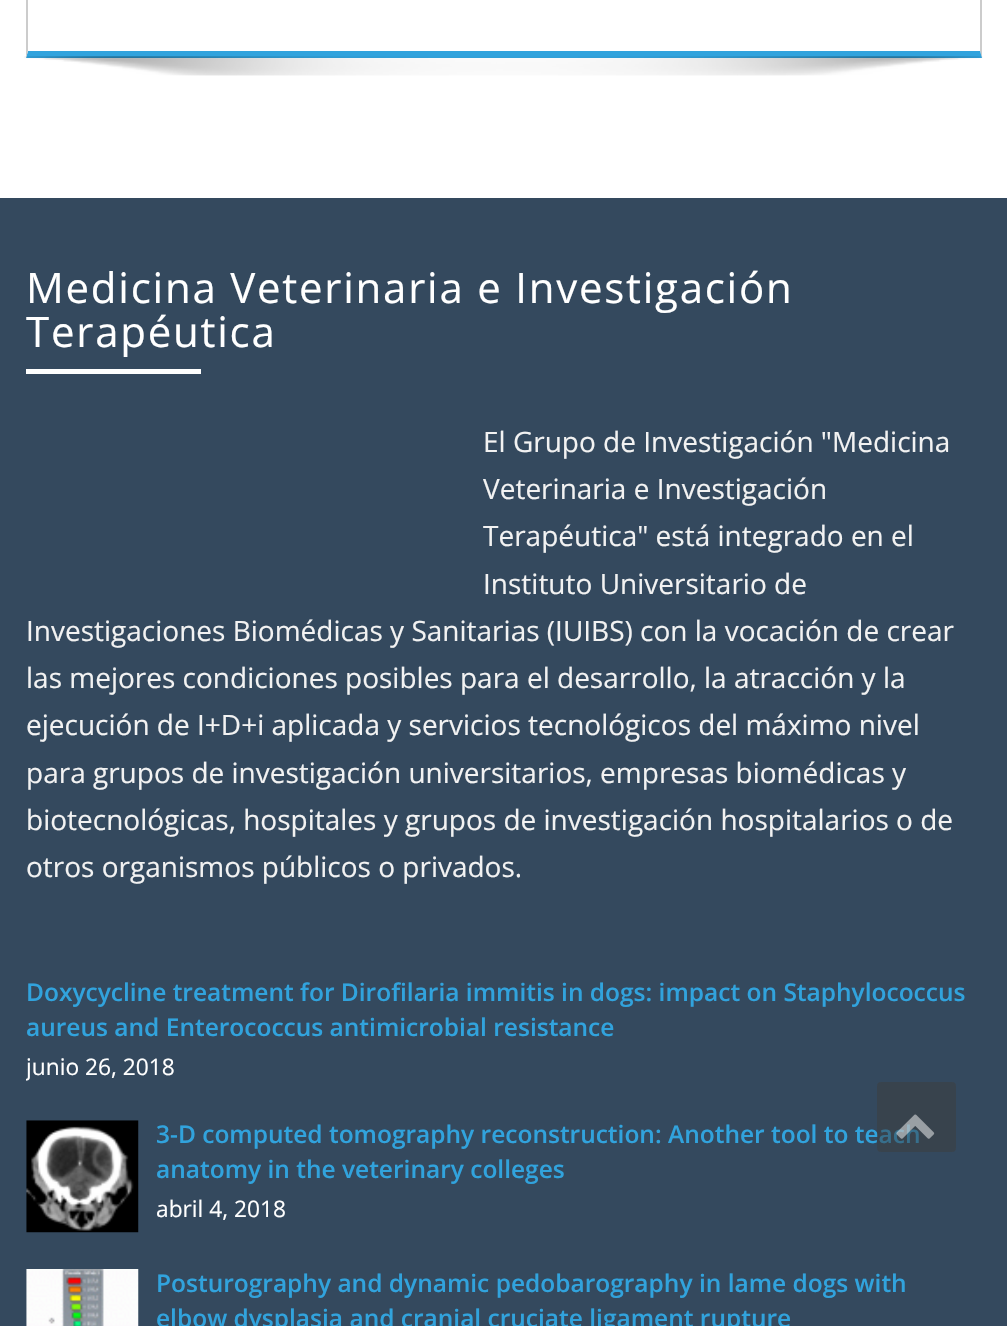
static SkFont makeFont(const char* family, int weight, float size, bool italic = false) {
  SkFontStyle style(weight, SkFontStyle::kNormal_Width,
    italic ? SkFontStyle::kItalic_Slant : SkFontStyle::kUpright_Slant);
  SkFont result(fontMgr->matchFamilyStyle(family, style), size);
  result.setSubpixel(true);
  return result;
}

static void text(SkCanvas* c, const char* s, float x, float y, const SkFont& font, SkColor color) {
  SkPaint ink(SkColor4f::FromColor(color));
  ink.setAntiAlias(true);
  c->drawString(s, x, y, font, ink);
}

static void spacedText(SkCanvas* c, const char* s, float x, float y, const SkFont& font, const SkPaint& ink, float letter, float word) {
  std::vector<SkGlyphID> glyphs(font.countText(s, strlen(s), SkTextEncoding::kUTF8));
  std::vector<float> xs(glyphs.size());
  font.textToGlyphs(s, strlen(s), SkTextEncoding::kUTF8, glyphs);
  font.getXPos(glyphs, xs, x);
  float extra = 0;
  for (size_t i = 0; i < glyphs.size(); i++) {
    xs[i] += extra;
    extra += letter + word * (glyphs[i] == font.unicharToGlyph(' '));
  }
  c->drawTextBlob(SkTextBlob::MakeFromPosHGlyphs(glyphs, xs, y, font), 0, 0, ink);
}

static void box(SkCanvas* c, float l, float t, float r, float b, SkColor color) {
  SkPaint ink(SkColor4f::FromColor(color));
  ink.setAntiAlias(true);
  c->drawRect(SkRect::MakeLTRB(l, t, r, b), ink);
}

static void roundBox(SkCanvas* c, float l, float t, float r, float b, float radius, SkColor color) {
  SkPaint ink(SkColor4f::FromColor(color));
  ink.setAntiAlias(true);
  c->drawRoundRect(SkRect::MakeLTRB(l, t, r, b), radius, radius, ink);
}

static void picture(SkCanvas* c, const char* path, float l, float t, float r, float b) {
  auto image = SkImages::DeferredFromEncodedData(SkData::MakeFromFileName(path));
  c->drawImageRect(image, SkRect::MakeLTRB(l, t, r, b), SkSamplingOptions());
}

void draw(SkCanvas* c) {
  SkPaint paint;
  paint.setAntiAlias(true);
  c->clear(0xffffffff);
  paint.setColor(0xffcccccc);
  c->drawPath(SkPathBuilder().moveTo(982, -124).lineTo(982, 58).lineTo(980, 51).lineTo(980, -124).close().detach(), paint);
  paint.setColor(0xff31a3dd);
  c->drawPath(SkPathBuilder().moveTo(982, 58).lineTo(26, 58).lineTo(28, 51).lineTo(980, 51).close().detach(), paint);
  paint.setColor(0xffcccccc);
  c->drawPath(SkPathBuilder().moveTo(26, 58).lineTo(26, -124).lineTo(28, -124).lineTo(28, 51).close().detach(), paint);
  picture(c, "img_01.png", 24, 56, 983, 76);
  box(c, 0, 198, 1007, 1326, 0xff34495e);
  SkFont face1 = makeFont("Open Sans", 400, 42);
  paint.setColor(0xffffffff);
  spacedText(c, "Medicina Veterinaria e Investigación", 26, 303, face1, paint, 1.75f, 0);
  spacedText(c, "Terapéutica", 26, 347, face1, paint, 1.75f, 0);
  box(c, 26, 369, 201, 374, 0xffffffff);
  SkFont face2 = makeFont("Open Sans", 400, 28);
  text(c, "El Grupo de Investigación \"Medicina", 483, 452, face2, 0xfff2f2f2);
  text(c, "Veterinaria e Investigación", 483, 499, face2, 0xfff2f2f2);
  text(c, "Terapéutica\" está integrado en el", 483, 546, face2, 0xfff2f2f2);
  text(c, "Instituto Universitario de", 483, 594, face2, 0xfff2f2f2);
  text(c, "Investigaciones Biomédicas y Sanitarias (IUIBS) con la vocación de crear", 26, 641, face2, 0xfff2f2f2);
  text(c, "las mejores condiciones posibles para el desarrollo, la atracción y la", 26, 688, face2, 0xfff2f2f2);
  text(c, "ejecución de I+D+i aplicada y servicios tecnológicos del máximo nivel", 26, 735, face2, 0xfff2f2f2);
  text(c, "para grupos de investigación universitarios, empresas biomédicas y", 26, 783, face2, 0xfff2f2f2);
  text(c, "biotecnológicas, hospitales y grupos de investigación hospitalarios o de", 26, 830, face2, 0xfff2f2f2);
  text(c, "otros organismos públicos o privados.", 26, 877, face2, 0xfff2f2f2);
  SkFont face3 = makeFont("Open Sans", 600, 24.5f);
  text(c, "Doxycycline treatment for Dirofilaria immitis in dogs: impact on Staphylococcus", 26, 1001, face3, 0xff31a3dd);
  text(c, "aureus and Enterococcus antimicrobial resistance", 26, 1036, face3, 0xff31a3dd);
  c->save();
  c->clipRect(SkRect::MakeLTRB(26, 978, 982, 1083));
  SkFont face4 = makeFont("Open Sans", 400, 22.75f);
  text(c, "junio 26, 2018", 26, 1075, face4, 0xffffffff);
  c->restore();
  picture(c, "img_02.png", 26, 1120, 139, 1233);
  text(c, "3-D computed tomography reconstruction: Another tool to teach", 156, 1143, face3, 0xff31a3dd);
  text(c, "anatomy in the veterinary colleges", 156, 1178, face3, 0xff31a3dd);
  text(c, "abril 4, 2018", 156, 1217, face4, 0xffffffff);
  picture(c, "img_03.png", 26, 1269, 139, 1326);
  text(c, "Posturography and dynamic pedobarography in lame dogs with", 156, 1292, face3, 0xff31a3dd);
  text(c, "elbow dysplasia and cranial cruciate ligament rupture", 156, 1327, face3, 0xff31a3dd);
  roundBox(c, 877, 1082, 956, 1152, 4, 0x803b3b3b);
  picture(c, "img_04.png", 896, 1114, 935, 1139);
}
